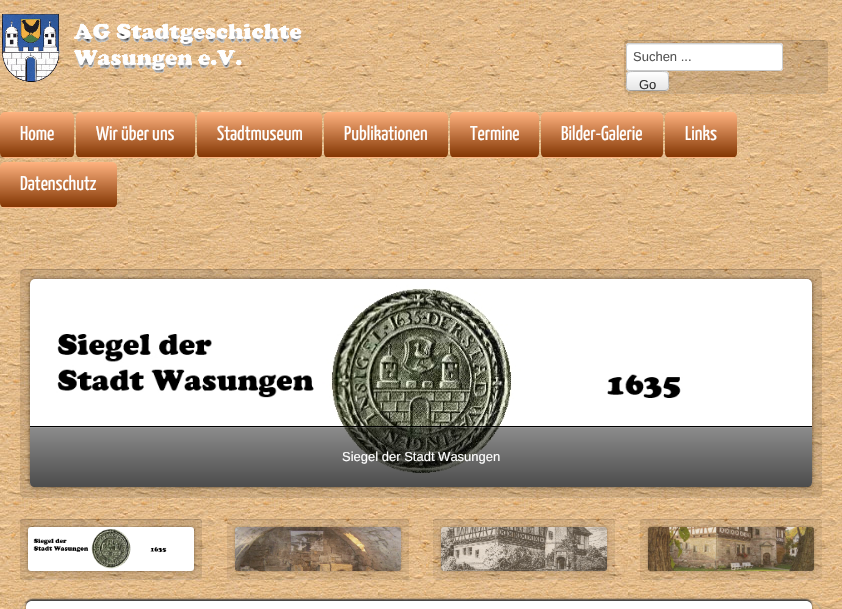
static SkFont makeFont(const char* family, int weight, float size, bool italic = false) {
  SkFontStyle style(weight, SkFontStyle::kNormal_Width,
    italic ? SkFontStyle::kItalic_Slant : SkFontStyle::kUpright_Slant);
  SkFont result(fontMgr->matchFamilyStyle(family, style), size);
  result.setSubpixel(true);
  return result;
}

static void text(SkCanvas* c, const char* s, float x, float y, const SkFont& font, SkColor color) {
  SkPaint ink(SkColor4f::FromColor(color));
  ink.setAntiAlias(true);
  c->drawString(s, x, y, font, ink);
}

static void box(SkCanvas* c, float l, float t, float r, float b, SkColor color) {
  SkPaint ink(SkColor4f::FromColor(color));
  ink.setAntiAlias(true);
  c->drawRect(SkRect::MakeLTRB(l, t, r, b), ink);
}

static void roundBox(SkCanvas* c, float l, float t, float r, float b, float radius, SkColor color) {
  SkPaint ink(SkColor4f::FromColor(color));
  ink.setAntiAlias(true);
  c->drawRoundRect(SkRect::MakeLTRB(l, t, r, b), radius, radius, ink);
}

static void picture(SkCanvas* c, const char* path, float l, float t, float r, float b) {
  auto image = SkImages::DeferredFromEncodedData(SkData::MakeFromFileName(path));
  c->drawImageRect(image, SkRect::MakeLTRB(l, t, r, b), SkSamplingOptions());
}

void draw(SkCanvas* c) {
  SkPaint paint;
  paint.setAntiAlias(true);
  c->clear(0xffffffff);
  picture(c, "img_01.png", 0, 0, 842, 609);
  picture(c, "img_02.png", 2, 14, 302, 82);
  roundBox(c, 624, 40, 828, 94, 5, 0x1a000000);
  paint.setColor(0x26000000);
  c->drawPath(SkPathBuilder().moveTo(629, 41).lineTo(823, 41).cubicTo(826, 41, 828, 43, 828, 46).lineTo(828, 45).cubicTo(828, 42, 826, 40, 823, 40).lineTo(629, 40).cubicTo(626, 40, 624, 42, 624, 45).lineTo(624, 46).cubicTo(624, 43, 626, 41, 629, 41).close().detach(), paint);
  box(c, 627, 93, 826, 94, 0x1affffff);
  roundBox(c, 626, 43, 783, 71, 3, 0xffffffff);
  paint.setColor(0xffececec);
  c->drawPath(SkPathBuilder().moveTo(629, 45).lineTo(780, 45).cubicTo(781, 45, 782, 46, 782, 47).cubicTo(782, 46, 782, 44, 780, 44).lineTo(628, 44).cubicTo(627, 45, 627, 46, 627, 47).cubicTo(627, 46, 628, 45, 629, 45).close().detach(), paint);
  paint.setStyle(SkPaint::kStroke_Style);
  paint.setStrokeWidth(1);
  paint.setColor(0xffcccccc);
  c->drawRoundRect(SkRect::MakeLTRB(626.5f, 43.5f, 782.5f, 70.5f), 2.5f, 2.5f, paint);
  SkFont face1 = makeFont("Liberation Sans", 400, 13);
  text(c, "Suchen ...", 633, 61, face1, 0xff555555);
  paint.setStyle(SkPaint::kFill_Style);
  paint.setColor(0x0d000000);
  paint.setMaskFilter(SkMaskFilter::MakeBlur(kNormal_SkBlurStyle, 1));
  c->drawRoundRect(SkRect::MakeLTRB(626, 72, 669, 92), 4, 4, paint);
  paint.setMaskFilter(nullptr);
  roundBox(c, 626, 71, 669, 91, 4, 0xfff5f5f5);
  c->save();
  c->clipPath(SkPathBuilder().moveTo(630, 71).lineTo(665, 71).cubicTo(667, 71, 669, 73, 669, 75).lineTo(669, 87).cubicTo(669, 89, 667, 91, 665, 91).lineTo(630, 91).cubicTo(628, 91, 626, 89, 626, 87).lineTo(626, 75).cubicTo(626, 73, 628, 71, 630, 71).close().detach(), true);
  {
    const SkColor colors[] = {0xffffffff, 0xffe6e6e6};
    const float stops[] = {0, 1};
    const SkPoint ends[] = {{648, 72}, {648, 90}};
    paint.setShader(SkGradientShader::MakeLinear(ends, colors, stops, 2, SkTileMode::kClamp));
    paint.setAlpha(255);
  }
  c->drawRect(SkRect::MakeLTRB(626, 72, 669, 90), paint);
  c->restore();
  paint.setStyle(SkPaint::kStroke_Style);
  paint.setShader(nullptr);
  paint.setColor(0xffa2a2a2);
  c->drawPath(SkPathBuilder().moveTo(667.5f, 89.5f).cubicTo(667, 90, 666, 90.5f, 665, 90.5f).lineTo(630, 90.5f).cubicTo(629, 90.5f, 628, 90, 627.5f, 89.5f).detach(), paint);
  paint.setColor(0xffbbbbbb);
  c->drawPath(SkPathBuilder().moveTo(627.5f, 89.5f).cubicTo(625.5f, 87.5f, 626.5f, 83.5f, 626.5f, 81).cubicTo(626.5f, 71.5f, 626, 71.5f, 636, 71.5f).lineTo(659, 71.5f).cubicTo(669, 71.5f, 668.5f, 71.5f, 668.5f, 81).cubicTo(668.5f, 83.5f, 669.5f, 87.5f, 667.5f, 89.5f).detach(), paint);
  text(c, "Go", 639, 89, face1, 0xff333333);
  picture(c, "img_03.png", 0, 112, 74, 158);
  SkFont face2 = makeFont("Yanone Kaffeesatz", 200, 20);
  text(c, "Home", 20, 140, face2, 0xffffffff);
  picture(c, "img_04.png", 76, 112, 195, 158);
  text(c, "Wir über uns", 96, 140, face2, 0xffffffff);
  picture(c, "img_05.png", 197, 112, 322, 158);
  text(c, "Stadtmuseum", 217, 140, face2, 0xffffffff);
  picture(c, "img_06.png", 324, 112, 448, 158);
  text(c, "Publikationen", 344, 140, face2, 0xffffffff);
  picture(c, "img_07.png", 450, 112, 539, 158);
  text(c, "Termine", 470, 140, face2, 0xffffffff);
  picture(c, "img_08.png", 541, 112, 663, 158);
  text(c, "Bilder-Galerie", 561, 140, face2, 0xffffffff);
  picture(c, "img_09.png", 665, 112, 737, 158);
  text(c, "Links", 685, 140, face2, 0xffffffff);
  picture(c, "img_10.png", 0, 162, 117, 208);
  text(c, "Datenschutz", 20, 190, face2, 0xffffffff);
  roundBox(c, 20, 269, 822, 498, 5, 0x1a000000);
  paint.setStyle(SkPaint::kFill_Style);
  paint.setColor(0x26000000);
  c->drawPath(SkPathBuilder().moveTo(25, 270).lineTo(817, 270).cubicTo(820, 270, 822, 272, 822, 275).lineTo(822, 274).cubicTo(822, 271, 820, 269, 817, 269).lineTo(25, 269).cubicTo(22, 269, 20, 271, 20, 274).lineTo(20, 275).cubicTo(20, 272, 22, 270, 25, 270).close().detach(), paint);
  box(c, 23, 497, 820, 498, 0x1affffff);
  paint.setColor(0x80000000);
  paint.setMaskFilter(SkMaskFilter::MakeBlur(kNormal_SkBlurStyle, 2));
  c->drawRoundRect(SkRect::MakeLTRB(30, 279, 812, 487), 5, 5, paint);
  paint.setMaskFilter(nullptr);
  picture(c, "img_11.png", 30, 279, 812, 487);
  {
    const SkColor colors[] = {0x73000000, 0xb3000000};
    const float stops[] = {0, 1};
    const SkPoint ends[] = {{421, 427}, {421, 487}};
    paint.setShader(SkGradientShader::MakeLinear(ends, colors, stops, 2, SkTileMode::kClamp));
    paint.setAlpha(255);
  }
  c->drawPath(SkPathBuilder().moveTo(30, 427).lineTo(812, 427).lineTo(812, 482).cubicTo(812, 485, 810, 487, 807, 487).lineTo(35, 487).cubicTo(32, 487, 30, 485, 30, 482).close().detach(), paint);
  box(c, 30, 427, 812, 428, 0x1fffffff);
  box(c, 30, 426, 812, 427, 0xff000000);
  text(c, "Siegel der Stadt Wasungen", 342, 461, face1, 0xffffffff);
  roundBox(c, 20, 519, 202, 580, 3, 0x1a000000);
  paint.setShader(nullptr);
  paint.setColor(0x26000000);
  c->drawPath(SkPathBuilder().moveTo(23, 520).lineTo(200, 520).lineTo(201, 521).lineTo(202, 523).lineTo(202, 522).cubicTo(202, 520, 201, 519, 199, 519).lineTo(23, 519).cubicTo(21, 519, 20, 520, 20, 522).lineTo(20, 523).cubicTo(20, 521, 21, 520, 23, 520).close().detach(), paint);
  box(c, 22, 579, 201, 580, 0x1affffff);
  paint.setColor(0x66000000);
  paint.setMaskFilter(SkMaskFilter::MakeBlur(kNormal_SkBlurStyle, 1.5f));
  c->drawRoundRect(SkRect::MakeLTRB(28, 527, 194, 571), 3, 3, paint);
  paint.setMaskFilter(nullptr);
  picture(c, "img_12.png", 28, 527, 194, 571);
  roundBox(c, 227, 519, 409, 580, 3, 0x12000000);
  paint.setColor(0x1a000000);
  c->drawPath(SkPathBuilder().moveTo(230, 520).lineTo(407, 520).lineTo(408, 521).lineTo(409, 523).lineTo(409, 522).cubicTo(409, 520, 408, 519, 406, 519).lineTo(230, 519).cubicTo(228, 519, 227, 520, 227, 522).lineTo(227, 523).cubicTo(227, 521, 228, 520, 230, 520).close().detach(), paint);
  box(c, 229, 579, 408, 580, 0x12ffffff);
  c->save();
  c->clipPath(SkPathBuilder(SkPathFillType::kEvenOdd).moveTo(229, 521).lineTo(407, 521).lineTo(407, 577).lineTo(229, 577).close().moveTo(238, 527).lineTo(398, 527).cubicTo(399.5f, 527, 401, 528.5f, 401, 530).lineTo(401, 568).cubicTo(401, 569.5f, 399.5f, 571, 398, 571).lineTo(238, 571).cubicTo(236.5f, 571, 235, 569.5f, 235, 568).lineTo(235, 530).cubicTo(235, 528.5f, 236.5f, 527, 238, 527).close().detach(), true);
  paint.setColor(0x47000000);
  paint.setMaskFilter(SkMaskFilter::MakeBlur(kNormal_SkBlurStyle, 1.5f));
  c->drawRoundRect(SkRect::MakeLTRB(235, 527, 401, 571), 3, 3, paint);
  paint.setMaskFilter(nullptr);
  c->restore();
  picture(c, "img_13.png", 235, 527, 401, 571);
  roundBox(c, 433, 519, 615, 580, 3, 0x12000000);
  paint.setColor(0x1a000000);
  c->drawPath(SkPathBuilder().moveTo(436, 520).lineTo(613, 520).lineTo(614, 521).lineTo(615, 523).lineTo(615, 522).cubicTo(615, 520, 614, 519, 612, 519).lineTo(436, 519).cubicTo(434, 519, 433, 520, 433, 522).lineTo(433, 523).cubicTo(433, 521, 434, 520, 436, 520).close().detach(), paint);
  box(c, 435, 579, 614, 580, 0x12ffffff);
  c->save();
  c->clipPath(SkPathBuilder(SkPathFillType::kEvenOdd).moveTo(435, 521).lineTo(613, 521).lineTo(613, 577).lineTo(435, 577).close().moveTo(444, 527).lineTo(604, 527).cubicTo(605.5f, 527, 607, 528.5f, 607, 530).lineTo(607, 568).cubicTo(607, 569.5f, 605.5f, 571, 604, 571).lineTo(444, 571).cubicTo(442.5f, 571, 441, 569.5f, 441, 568).lineTo(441, 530).cubicTo(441, 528.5f, 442.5f, 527, 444, 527).close().detach(), true);
  paint.setColor(0x47000000);
  paint.setMaskFilter(SkMaskFilter::MakeBlur(kNormal_SkBlurStyle, 1.5f));
  c->drawRoundRect(SkRect::MakeLTRB(441, 527, 607, 571), 3, 3, paint);
  paint.setMaskFilter(nullptr);
  c->restore();
  picture(c, "img_14.png", 441, 527, 607, 571);
  roundBox(c, 640, 519, 822, 580, 3, 0x12000000);
  paint.setColor(0x1a000000);
  c->drawPath(SkPathBuilder().moveTo(643, 520).lineTo(820, 520).lineTo(821, 521).lineTo(822, 523).lineTo(822, 522).cubicTo(822, 520, 821, 519, 819, 519).lineTo(643, 519).cubicTo(641, 519, 640, 520, 640, 522).lineTo(640, 523).cubicTo(640, 521, 641, 520, 643, 520).close().detach(), paint);
  box(c, 642, 579, 821, 580, 0x12ffffff);
  c->save();
  c->clipPath(SkPathBuilder(SkPathFillType::kEvenOdd).moveTo(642, 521).lineTo(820, 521).lineTo(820, 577).lineTo(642, 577).close().moveTo(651, 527).lineTo(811, 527).cubicTo(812.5f, 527, 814, 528.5f, 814, 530).lineTo(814, 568).cubicTo(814, 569.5f, 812.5f, 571, 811, 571).lineTo(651, 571).cubicTo(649.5f, 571, 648, 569.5f, 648, 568).lineTo(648, 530).cubicTo(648, 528.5f, 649.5f, 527, 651, 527).close().detach(), true);
  paint.setColor(0x47000000);
  paint.setMaskFilter(SkMaskFilter::MakeBlur(kNormal_SkBlurStyle, 1.5f));
  c->drawRoundRect(SkRect::MakeLTRB(648, 527, 814, 571), 3, 3, paint);
  paint.setMaskFilter(nullptr);
  c->restore();
  picture(c, "img_15.png", 648, 527, 814, 571);
  c->save();
  c->clipPath(SkPathBuilder(SkPathFillType::kEvenOdd).moveTo(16, 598).lineTo(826, 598).lineTo(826, 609).lineTo(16, 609).close().moveTo(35, 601).lineTo(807, 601).cubicTo(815.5f, 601, 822, 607.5f, 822, 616).lineTo(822, 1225).lineTo(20, 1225).lineTo(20, 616).cubicTo(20, 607.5f, 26.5f, 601, 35, 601).close().detach(), true);
  paint.setColor(0xff98a39e);
  paint.setMaskFilter(SkMaskFilter::MakeBlur(kNormal_SkBlurStyle, 1));
  c->drawRoundRect(SkRect::MakeLTRB(20, 602, 822, 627), 15, 15, paint);
  paint.setMaskFilter(nullptr);
  c->restore();
  paint.setColor(0xff424141);
  paint.setMaskFilter(SkMaskFilter::MakeBlur(kNormal_SkBlurStyle, 1));
  c->drawRoundRect(SkRect::MakeLTRB(26, 599, 812, 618), 6, 6, paint);
  paint.setMaskFilter(nullptr);
  paint.setColor(0xffffffff);
  c->drawPath(SkPathBuilder().moveTo(32, 601).lineTo(806, 601).cubicTo(809.5f, 601, 812, 603.5f, 812, 607).lineTo(812, 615).lineTo(26, 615).lineTo(26, 607).cubicTo(26, 603.5f, 28.5f, 601, 32, 601).close().detach(), paint);
}
